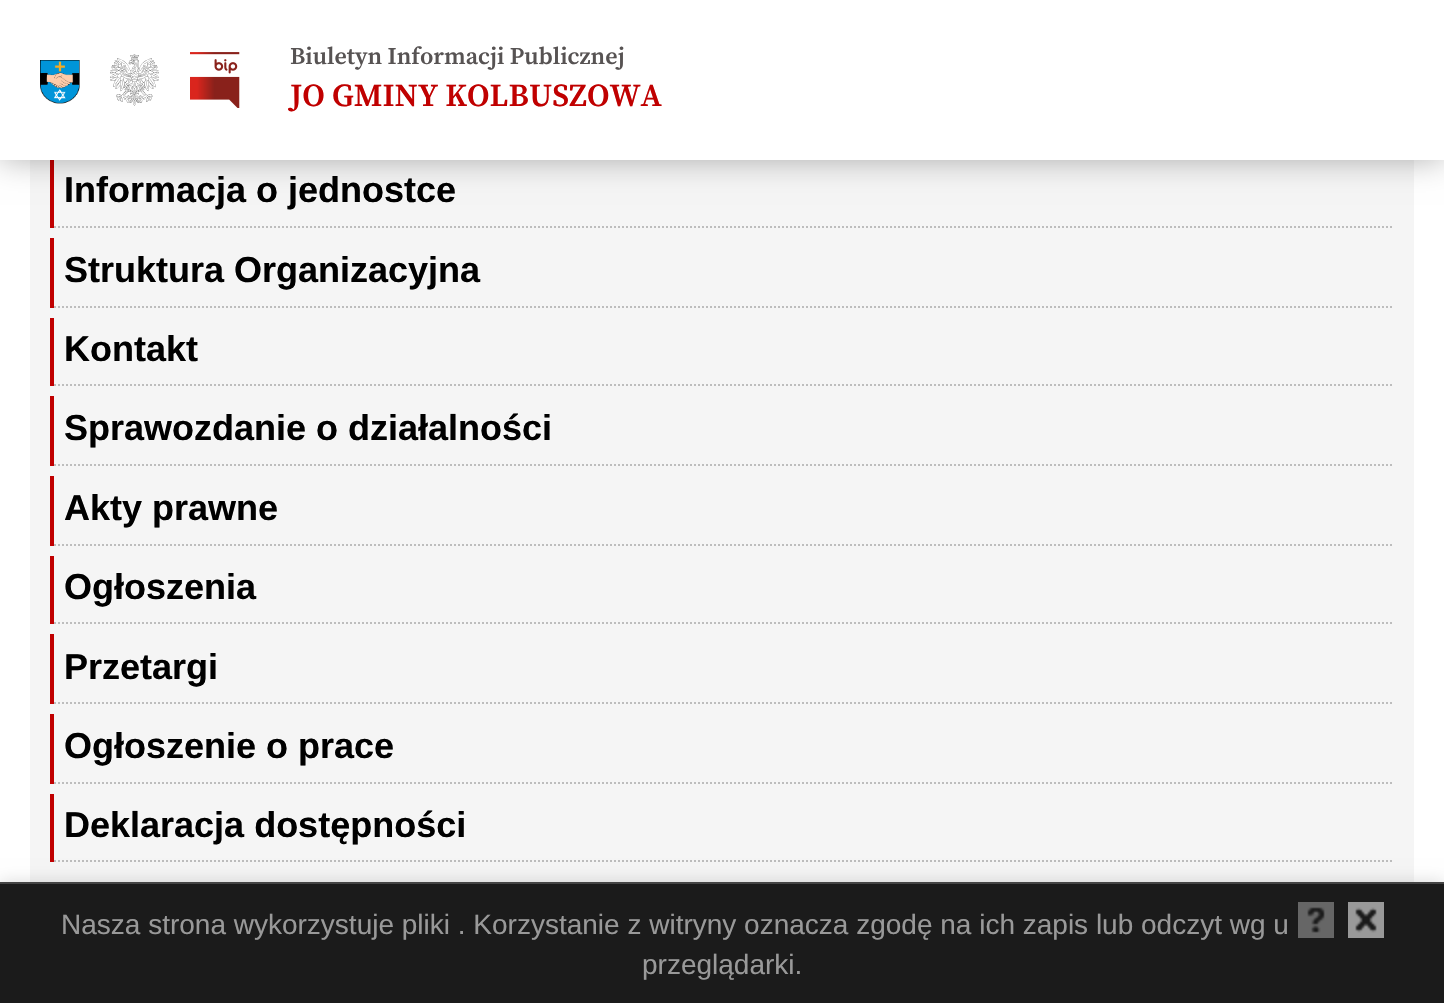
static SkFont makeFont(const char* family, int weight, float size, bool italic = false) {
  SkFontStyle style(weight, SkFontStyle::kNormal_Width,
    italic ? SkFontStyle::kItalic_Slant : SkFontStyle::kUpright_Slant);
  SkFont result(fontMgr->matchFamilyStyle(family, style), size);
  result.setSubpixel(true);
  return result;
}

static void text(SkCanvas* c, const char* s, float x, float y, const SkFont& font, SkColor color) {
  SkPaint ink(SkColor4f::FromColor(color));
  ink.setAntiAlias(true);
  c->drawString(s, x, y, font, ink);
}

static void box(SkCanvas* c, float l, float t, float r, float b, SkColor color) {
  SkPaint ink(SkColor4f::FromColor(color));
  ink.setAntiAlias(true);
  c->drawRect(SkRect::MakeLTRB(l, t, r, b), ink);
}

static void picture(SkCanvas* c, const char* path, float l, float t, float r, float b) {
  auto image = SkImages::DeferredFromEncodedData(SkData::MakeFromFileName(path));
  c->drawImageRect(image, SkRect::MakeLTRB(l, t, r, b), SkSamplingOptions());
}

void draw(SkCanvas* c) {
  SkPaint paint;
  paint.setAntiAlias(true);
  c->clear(0xffffffff);
  box(c, 30, 160, 1414, 882, 0xfff5f5f5);
  box(c, 50, 158, 54, 228, 0xffc00000);
  paint.setColor(0x4d000000);
  paint.setMaskFilter(SkMaskFilter::MakeBlur(kNormal_SkBlurStyle, 15));
  c->drawRect(SkRect::MakeLTRB(0, 0, 1444, 160), paint);
  paint.setMaskFilter(nullptr);
  box(c, 0, 0, 1444, 160, 0xffffffff);
  picture(c, "img_01.png", 40, 60, 80, 104);
  picture(c, "img_02.png", 110, 54, 159, 106);
  picture(c, "img_03.png", 190, 52, 240, 108);
  SkFont face1 = makeFont("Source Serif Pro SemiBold", 600, 24);
  text(c, "Biuletyn Informacji Publicznej", 290, 64, face1, 0xff575353);
  SkFont face2 = makeFont("Source Serif Pro SemiBold", 600, 32);
  text(c, "JO GMINY KOLBUSZOWA", 290, 106, face2, 0xffc00000);
  paint.setStyle(SkPaint::kStroke_Style);
  paint.setStrokeWidth(2);
  paint.setColor(0xffbdbdbd);
  paint.setPathEffect(SkDashPathEffect::Make({{2, 2}}, 0));
  c->drawPath(SkPathBuilder().moveTo(54, 227).lineTo(1394, 227).detach(), paint);
  paint.setPathEffect(nullptr);
  SkFont face3 = makeFont("Liberation Sans", 700, 36);
  text(c, "Informacja o jednostce", 64, 202, face3, 0xff000000);
  box(c, 50, 238, 54, 308, 0xffc00000);
  paint.setPathEffect(SkDashPathEffect::Make({{2, 2}}, 0));
  c->drawPath(SkPathBuilder().moveTo(54, 307).lineTo(1394, 307).detach(), paint);
  paint.setPathEffect(nullptr);
  text(c, "Struktura Organizacyjna", 64, 282, face3, 0xff000000);
  box(c, 50, 318, 54, 386, 0xffc00000);
  paint.setPathEffect(SkDashPathEffect::Make({{2, 2}}, 0));
  c->drawPath(SkPathBuilder().moveTo(54, 385).lineTo(1394, 385).detach(), paint);
  paint.setPathEffect(nullptr);
  text(c, "Kontakt", 64, 361, face3, 0xff000000);
  box(c, 50, 396, 54, 466, 0xffc00000);
  paint.setPathEffect(SkDashPathEffect::Make({{2, 2}}, 0));
  c->drawPath(SkPathBuilder().moveTo(54, 465).lineTo(1394, 465).detach(), paint);
  paint.setPathEffect(nullptr);
  text(c, "Sprawozdanie o działalności", 64, 440, face3, 0xff000000);
  box(c, 50, 476, 54, 546, 0xffc00000);
  paint.setPathEffect(SkDashPathEffect::Make({{2, 2}}, 0));
  c->drawPath(SkPathBuilder().moveTo(54, 545).lineTo(1394, 545).detach(), paint);
  paint.setPathEffect(nullptr);
  text(c, "Akty prawne", 64, 520, face3, 0xff000000);
  box(c, 50, 556, 54, 624, 0xffc00000);
  paint.setPathEffect(SkDashPathEffect::Make({{2, 2}}, 0));
  c->drawPath(SkPathBuilder().moveTo(54, 623).lineTo(1394, 623).detach(), paint);
  paint.setPathEffect(nullptr);
  text(c, "Ogłoszenia", 64, 599, face3, 0xff000000);
  box(c, 50, 634, 54, 704, 0xffc00000);
  paint.setPathEffect(SkDashPathEffect::Make({{2, 2}}, 0));
  c->drawPath(SkPathBuilder().moveTo(54, 703).lineTo(1394, 703).detach(), paint);
  paint.setPathEffect(nullptr);
  text(c, "Przetargi", 64, 679, face3, 0xff000000);
  box(c, 50, 714, 54, 784, 0xffc00000);
  paint.setPathEffect(SkDashPathEffect::Make({{2, 2}}, 0));
  c->drawPath(SkPathBuilder().moveTo(54, 783).lineTo(1394, 783).detach(), paint);
  paint.setPathEffect(nullptr);
  text(c, "Ogłoszenie o prace", 64, 758, face3, 0xff000000);
  box(c, 50, 794, 54, 862, 0xffc00000);
  paint.setPathEffect(SkDashPathEffect::Make({{2, 2}}, 0));
  c->drawPath(SkPathBuilder().moveTo(54, 861).lineTo(1394, 861).detach(), paint);
  paint.setPathEffect(nullptr);
  text(c, "Deklaracja dostępności", 64, 837, face3, 0xff000000);
  paint.setStyle(SkPaint::kFill_Style);
  paint.setColor(0x26000000);
  paint.setMaskFilter(SkMaskFilter::MakeBlur(kNormal_SkBlurStyle, 8));
  c->drawRect(SkRect::MakeLTRB(0, 882, 1444, 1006), paint);
  paint.setMaskFilter(nullptr);
  box(c, 0, 884, 1444, 1003, 0xff1b1b1b);
  box(c, 0, 882, 1444, 884, 0xff444444);
  SkFont face4 = makeFont("Liberation Sans", 400, 28);
  text(c, "Nasza strona wykorzystuje pliki . Korzystanie z witryny oznacza zgodę na ich zapis lub odczyt wg u", 61, 934, face4, 0xff999999);
  picture(c, "img_04.png", 1298, 902, 1334, 938);
  picture(c, "img_05.png", 1348, 902, 1384, 938);
  text(c, "przeglądarki.", 642, 974, face4, 0xff999999);
}
